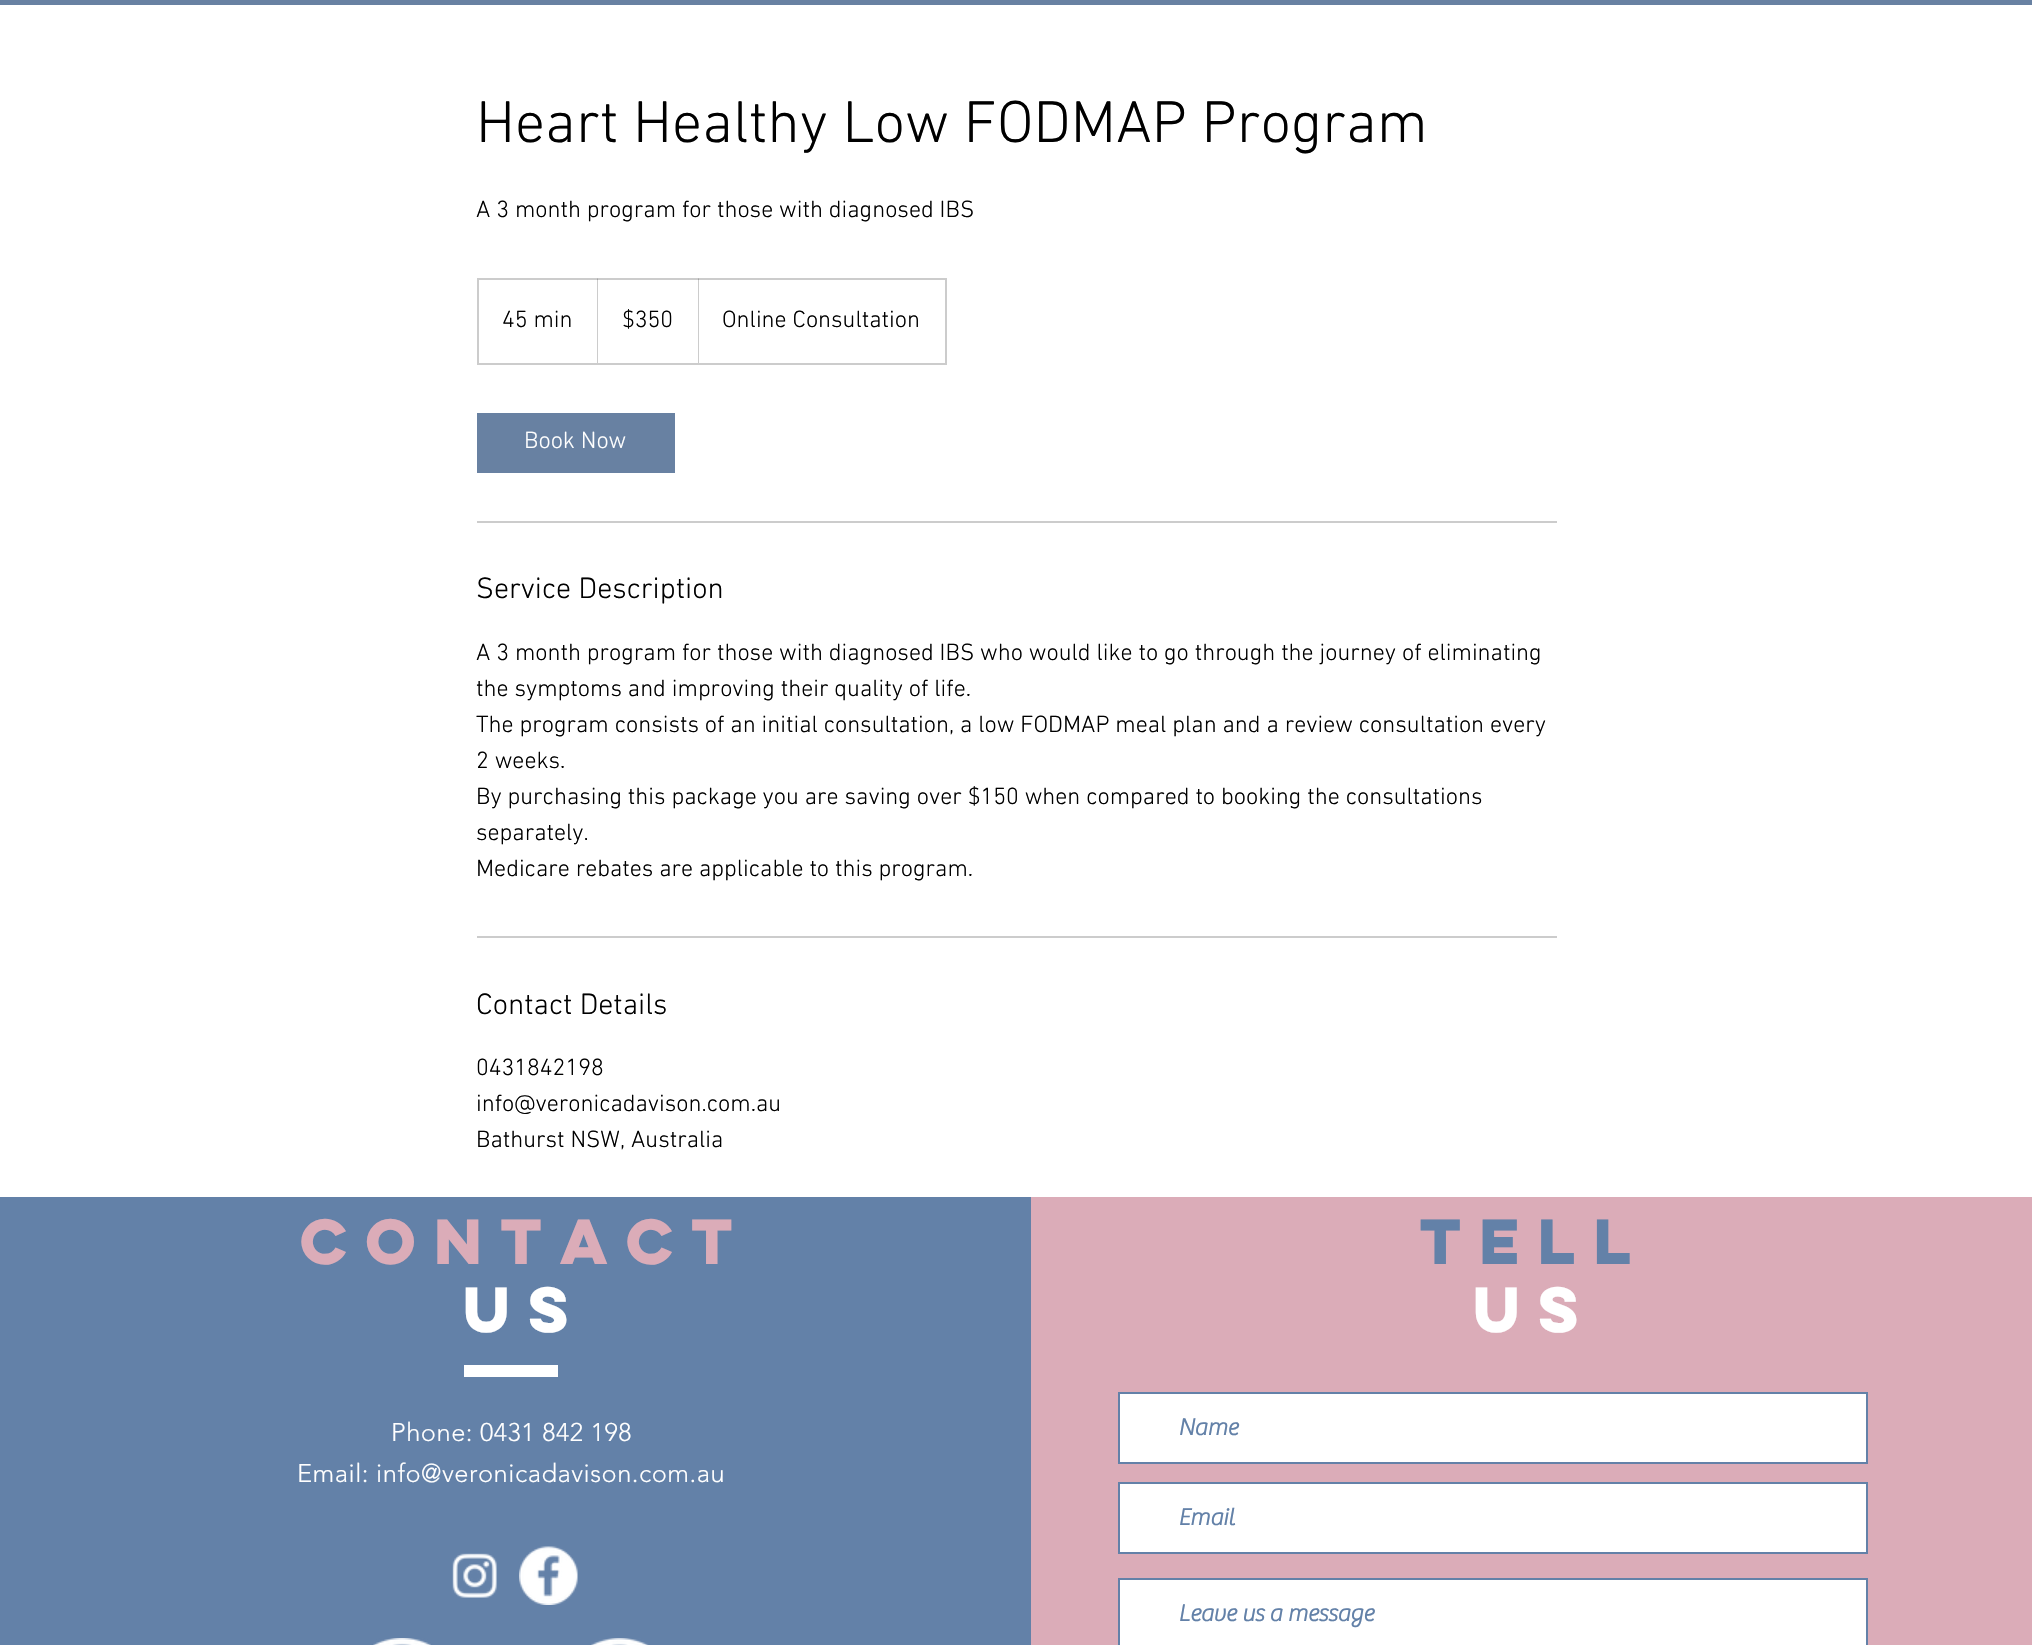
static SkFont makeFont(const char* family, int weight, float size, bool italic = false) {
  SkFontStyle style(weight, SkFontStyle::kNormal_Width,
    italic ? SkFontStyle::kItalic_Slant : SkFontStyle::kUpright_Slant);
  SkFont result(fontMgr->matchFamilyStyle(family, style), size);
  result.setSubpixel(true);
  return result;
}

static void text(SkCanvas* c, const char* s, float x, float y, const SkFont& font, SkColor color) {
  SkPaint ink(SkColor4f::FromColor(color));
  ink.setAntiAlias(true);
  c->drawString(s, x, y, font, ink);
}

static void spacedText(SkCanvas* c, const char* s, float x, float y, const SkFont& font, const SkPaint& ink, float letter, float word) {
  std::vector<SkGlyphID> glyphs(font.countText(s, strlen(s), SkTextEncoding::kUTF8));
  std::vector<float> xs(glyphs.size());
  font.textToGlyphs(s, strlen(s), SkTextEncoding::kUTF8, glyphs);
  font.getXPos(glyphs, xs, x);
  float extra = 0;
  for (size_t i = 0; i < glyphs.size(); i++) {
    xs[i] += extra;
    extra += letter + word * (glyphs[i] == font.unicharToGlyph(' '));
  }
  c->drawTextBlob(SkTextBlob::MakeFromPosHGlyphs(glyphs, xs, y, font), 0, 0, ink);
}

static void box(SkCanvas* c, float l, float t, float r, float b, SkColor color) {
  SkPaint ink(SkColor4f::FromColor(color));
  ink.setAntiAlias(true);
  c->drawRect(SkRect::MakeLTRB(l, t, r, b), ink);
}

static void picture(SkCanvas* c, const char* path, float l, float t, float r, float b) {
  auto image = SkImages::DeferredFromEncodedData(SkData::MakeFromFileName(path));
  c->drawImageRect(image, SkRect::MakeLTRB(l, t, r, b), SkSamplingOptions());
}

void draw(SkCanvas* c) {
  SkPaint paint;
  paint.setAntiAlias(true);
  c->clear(0xffffffff);
  box(c, 0, 0, 2032, 5, 0xff6881a2);
  SkFont face1 = makeFont("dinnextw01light", 300, 60);
  text(c, "Heart Healthy Low FODMAP Program", 476, 142, face1, 0xff000000);
  SkFont face2 = makeFont("dinnextw01light", 300, 24);
  text(c, "A 3 month program for those with diagnosed IBS", 476, 217, face2, 0xff000000);
  paint.setStyle(SkPaint::kStroke_Style);
  paint.setStrokeWidth(2);
  paint.setColor(0xffcccccc);
  c->drawRect(SkRect::MakeLTRB(478, 279, 946, 364), paint);
  text(c, "45 min", 502, 327, face2, 0xff000000);
  paint.setStyle(SkPaint::kFill_Style);
  paint.setColor(0x33000000);
  c->drawPath(SkPathBuilder().moveTo(597, 363).lineTo(597, 278).lineTo(598, 279).lineTo(598, 363).close().detach(), paint);
  text(c, "$350", 622, 327, face2, 0xff000000);
  c->drawPath(SkPathBuilder().moveTo(698, 363).lineTo(698, 278).lineTo(699, 279).lineTo(699, 363).close().detach(), paint);
  text(c, "Online Consultation", 722, 327, face2, 0xff000000);
  box(c, 477, 413, 675, 473, 0xff6881a2);
  text(c, "Book Now", 524, 448, face2, 0xffffffff);
  box(c, 477, 521, 1557, 523, 0xffcccccc);
  SkFont face3 = makeFont("dinnextw01light", 300, 30);
  text(c, "Service Description", 476, 598, face3, 0xff000000);
  text(c, "A 3 month program for those with diagnosed IBS who would like to go through the journey of eliminating", 476, 660, face2, 0xff000000);
  text(c, "the symptoms and improving their quality of life.", 476, 696, face2, 0xff000000);
  text(c, "The program consists of an initial consultation, a low FODMAP meal plan and a review consultation every", 476, 732, face2, 0xff000000);
  text(c, "2 weeks.", 476, 768, face2, 0xff000000);
  text(c, "By purchasing this package you are saving over $150 when compared to booking the consultations", 476, 804, face2, 0xff000000);
  text(c, "separately.", 476, 840, face2, 0xff000000);
  text(c, "Medicare rebates are applicable to this program.", 476, 876, face2, 0xff000000);
  box(c, 477, 936, 1557, 938, 0xffcccccc);
  text(c, "Contact Details", 476, 1014, face3, 0xff000000);
  text(c, "0431842198", 476, 1075, face2, 0xff000000);
  text(c, "info@veronicadavison.com.au", 476, 1111, face2, 0xff000000);
  text(c, "Bathurst NSW, Australia", 476, 1147, face2, 0xff000000);
  box(c, 0, 1197, 1031, 1645, 0xff6381a8);
  SkFont face4 = makeFont("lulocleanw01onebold", 700, 57);
  paint.setColor(0xffdbacb8);
  spacedText(c, "CONTACT", 300, 1264, face4, paint, 5.75f, 0);
  paint.setColor(0xffffffff);
  spacedText(c, "US", 463, 1332, face4, paint, 5.75f, 0);
  box(c, 464, 1365, 558, 1377, 0xffffffff);
  SkFont face5 = makeFont("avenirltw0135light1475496", 300, 25.5f);
  spacedText(c, "Phone: 0431 842 198", 391, 1441, face5, paint, 0.5f, 0);
  spacedText(c, "Email: info@veronicadavison.com.au", 297, 1482, face5, paint, 0.5f, 0);
  picture(c, "img_01.png", 452, 1553, 497, 1598);
  picture(c, "img_02.png", 519, 1546, 578, 1605);
  picture(c, "img_03.png", 373, 1638, 431, 1645);
  picture(c, "img_04.png", 591, 1638, 649, 1645);
  box(c, 1031, 1197, 2032, 1645, 0xffdbacb8);
  paint.setColor(0xff6381a8);
  spacedText(c, "TELL", 1420, 1264, face4, paint, 5.75f, 0);
  paint.setColor(0xffffffff);
  spacedText(c, "US", 1473, 1332, face4, paint, 5.75f, 0);
  c->drawRect(SkRect::MakeLTRB(1119, 1393, 1867, 1463), paint);
  paint.setStyle(SkPaint::kStroke_Style);
  paint.setColor(0xff6381a8);
  c->drawRect(SkRect::MakeLTRB(1119, 1393, 1867, 1463), paint);
  SkFont face6 = makeFont("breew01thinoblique", 700, 24);
  text(c, "Name", 1178, 1435, face6, 0xff6381a8);
  paint.setStyle(SkPaint::kFill_Style);
  paint.setColor(0xffffffff);
  c->drawRect(SkRect::MakeLTRB(1119, 1483, 1867, 1553), paint);
  paint.setStyle(SkPaint::kStroke_Style);
  paint.setColor(0xff6381a8);
  c->drawRect(SkRect::MakeLTRB(1119, 1483, 1867, 1553), paint);
  text(c, "Email", 1178, 1525, face6, 0xff6381a8);
  paint.setStyle(SkPaint::kFill_Style);
  paint.setColor(0xffffffff);
  c->drawRect(SkRect::MakeLTRB(1119, 1579, 1867, 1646), paint);
  paint.setStyle(SkPaint::kStroke_Style);
  paint.setColor(0xff6381a8);
  c->drawRect(SkRect::MakeLTRB(1119, 1579, 1867, 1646), paint);
  text(c, "Leave us a message", 1178, 1621, face6, 0xff6381a8);
}
